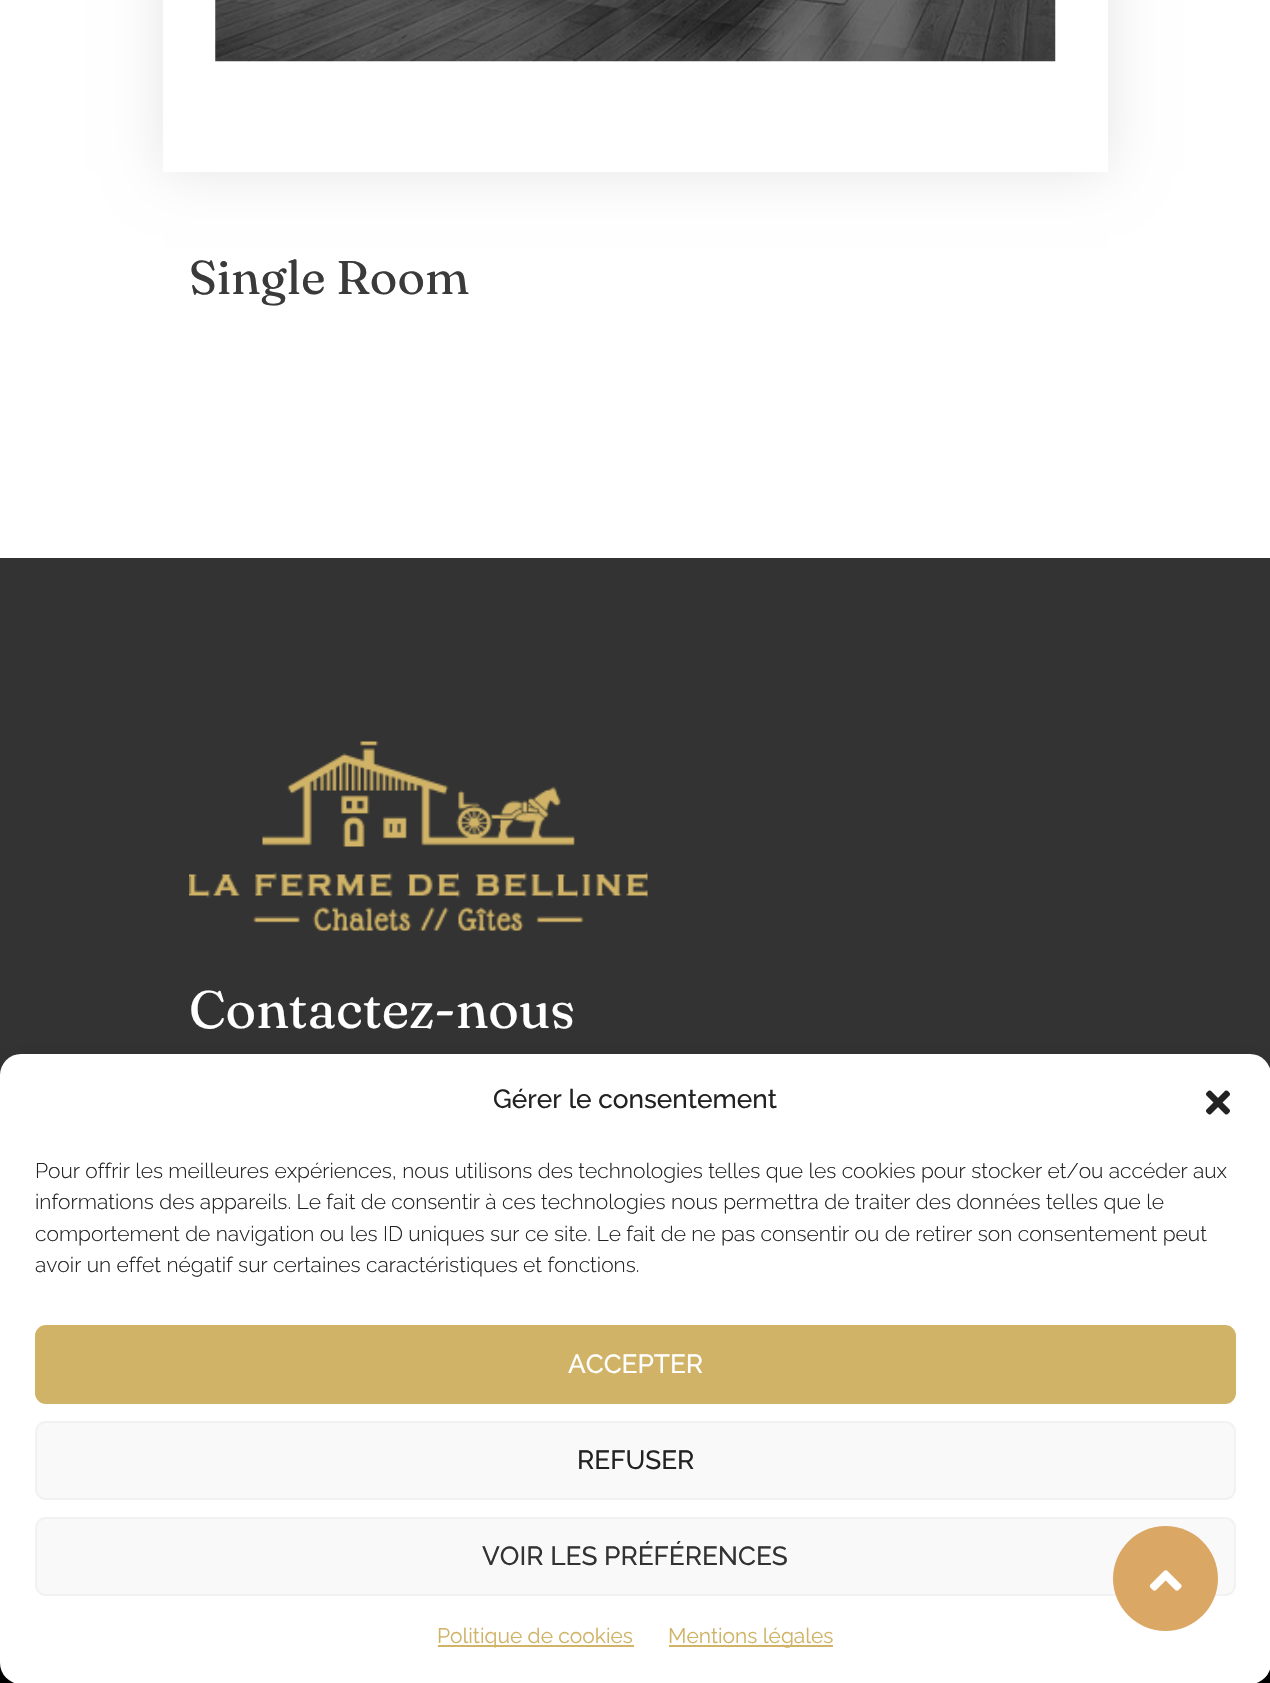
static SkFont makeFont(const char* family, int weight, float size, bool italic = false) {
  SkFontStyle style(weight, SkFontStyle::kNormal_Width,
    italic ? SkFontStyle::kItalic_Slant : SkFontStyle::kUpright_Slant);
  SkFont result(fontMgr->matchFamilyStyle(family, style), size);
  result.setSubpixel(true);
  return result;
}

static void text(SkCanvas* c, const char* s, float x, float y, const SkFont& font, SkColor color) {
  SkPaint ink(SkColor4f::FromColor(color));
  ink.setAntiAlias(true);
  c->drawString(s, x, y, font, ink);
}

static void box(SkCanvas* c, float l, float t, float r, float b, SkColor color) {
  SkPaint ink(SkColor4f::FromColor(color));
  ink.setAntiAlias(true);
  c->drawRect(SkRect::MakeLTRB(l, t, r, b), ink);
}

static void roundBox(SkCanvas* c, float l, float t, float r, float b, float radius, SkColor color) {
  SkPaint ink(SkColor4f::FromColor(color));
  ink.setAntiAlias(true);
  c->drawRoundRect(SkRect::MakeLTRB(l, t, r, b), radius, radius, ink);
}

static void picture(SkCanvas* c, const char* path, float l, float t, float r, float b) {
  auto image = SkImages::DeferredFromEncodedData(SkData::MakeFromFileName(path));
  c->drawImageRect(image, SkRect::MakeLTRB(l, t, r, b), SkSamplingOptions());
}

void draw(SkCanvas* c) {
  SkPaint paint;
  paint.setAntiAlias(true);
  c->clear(0xffffffff);
  c->save();
  c->clipPath(SkPathBuilder(SkPathFillType::kEvenOdd).moveTo(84, 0).lineTo(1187, 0).lineTo(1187, 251).lineTo(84, 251).close().moveTo(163, -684).lineTo(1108, -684).lineTo(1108, 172).lineTo(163, 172).close().detach(), true);
  paint.setColor(0x1a000000);
  paint.setMaskFilter(SkMaskFilter::MakeBlur(kNormal_SkBlurStyle, 26));
  c->drawRect(SkRect::MakeLTRB(163, -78, 1108, 172), paint);
  paint.setMaskFilter(nullptr);
  c->restore();
  picture(c, "img_01.png", 215, 0, 1056, 63);
  SkFont face1 = makeFont("Fraunces", 400, 47.25f);
  text(c, "Single Room", 189, 294, face1, 0xff3a3a3a);
  box(c, 0, 558, 1270, 1075, 0xff333333);
  picture(c, "img_02.png", 189, 741, 648, 931);
  SkFont face2 = makeFont("Fraunces", 400, 52.5f);
  text(c, "Contactez-nous", 189, 1028, face2, 0xffffffff);
  box(c, 0, 1663, 1270, 1683, 0xff000000);
  paint.setColor(0x30000000);
  paint.setMaskFilter(SkMaskFilter::MakeBlur(kNormal_SkBlurStyle, 17.5f));
  c->drawRoundRect(SkRect::MakeLTRB(0, 1071, 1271, 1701), 21, 21, paint);
  paint.setMaskFilter(nullptr);
  roundBox(c, 0, 1054, 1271, 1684, 21, 0xffffffff);
  SkFont face3 = makeFont("Raleway", 500, 26.25f);
  text(c, "Gérer le consentement", 493, 1108, face3, 0xff222222);
  picture(c, "img_03.png", 1206, 1090, 1230, 1115);
  SkFont face4 = makeFont("Raleway", 300, 21);
  text(c, "Pour offrir les meilleures expériences, nous utilisons des technologies telles que les cookies pour stocker et/ou accéder aux", 35, 1178, face4, 0xff222222);
  text(c, "informations des appareils. Le fait de consentir à ces technologies nous permettra de traiter des données telles que le", 35, 1209, face4, 0xff222222);
  text(c, "comportement de navigation ou les ID uniques sur ce site. Le fait de ne pas consentir ou de retirer son consentement peut", 35, 1241, face4, 0xff222222);
  text(c, "avoir un effet négatif sur certaines caractéristiques et fonctions.", 35, 1272, face4, 0xff222222);
  paint.setColor(0xffd0b366);
  c->drawRoundRect(SkRect::MakeLTRB(36, 1326, 1235, 1403), 10, 10, paint);
  paint.setStyle(SkPaint::kStroke_Style);
  paint.setStrokeWidth(2);
  c->drawRoundRect(SkRect::MakeLTRB(36, 1326, 1235, 1403), 10, 10, paint);
  text(c, "ACCEPTER", 568, 1373, face3, 0xffffffff);
  paint.setStyle(SkPaint::kFill_Style);
  paint.setColor(0xfff9f9f9);
  c->drawRoundRect(SkRect::MakeLTRB(36, 1422, 1235, 1499), 10, 10, paint);
  paint.setStyle(SkPaint::kStroke_Style);
  paint.setColor(0xfff2f2f2);
  c->drawRoundRect(SkRect::MakeLTRB(36, 1422, 1235, 1499), 10, 10, paint);
  text(c, "REFUSER", 577, 1469, face3, 0xff222222);
  paint.setStyle(SkPaint::kFill_Style);
  paint.setColor(0xfff9f9f9);
  c->drawRoundRect(SkRect::MakeLTRB(36, 1518, 1235, 1595), 10, 10, paint);
  paint.setStyle(SkPaint::kStroke_Style);
  paint.setColor(0xfff2f2f2);
  c->drawRoundRect(SkRect::MakeLTRB(36, 1518, 1235, 1595), 10, 10, paint);
  text(c, "VOIR LES PRÉFÉRENCES", 482, 1565, face3, 0xff333333);
  box(c, 438, 1645, 634, 1647, 0xffd0b366);
  SkFont face5 = makeFont("Raleway", 400, 21);
  text(c, "Politique de cookies", 437, 1643, face5, 0xffd0b366);
  box(c, 669, 1645, 833, 1647, 0xffd0b366);
  text(c, "Mentions légales", 668, 1643, face5, 0xffd0b366);
  paint.setStyle(SkPaint::kFill_Style);
  paint.setColor(0xffdba765);
  c->drawCircle(1165.5f, 1578.5f, 52.5f, paint);
  picture(c, "img_04.png", 1149, 1570, 1182, 1591);
}
